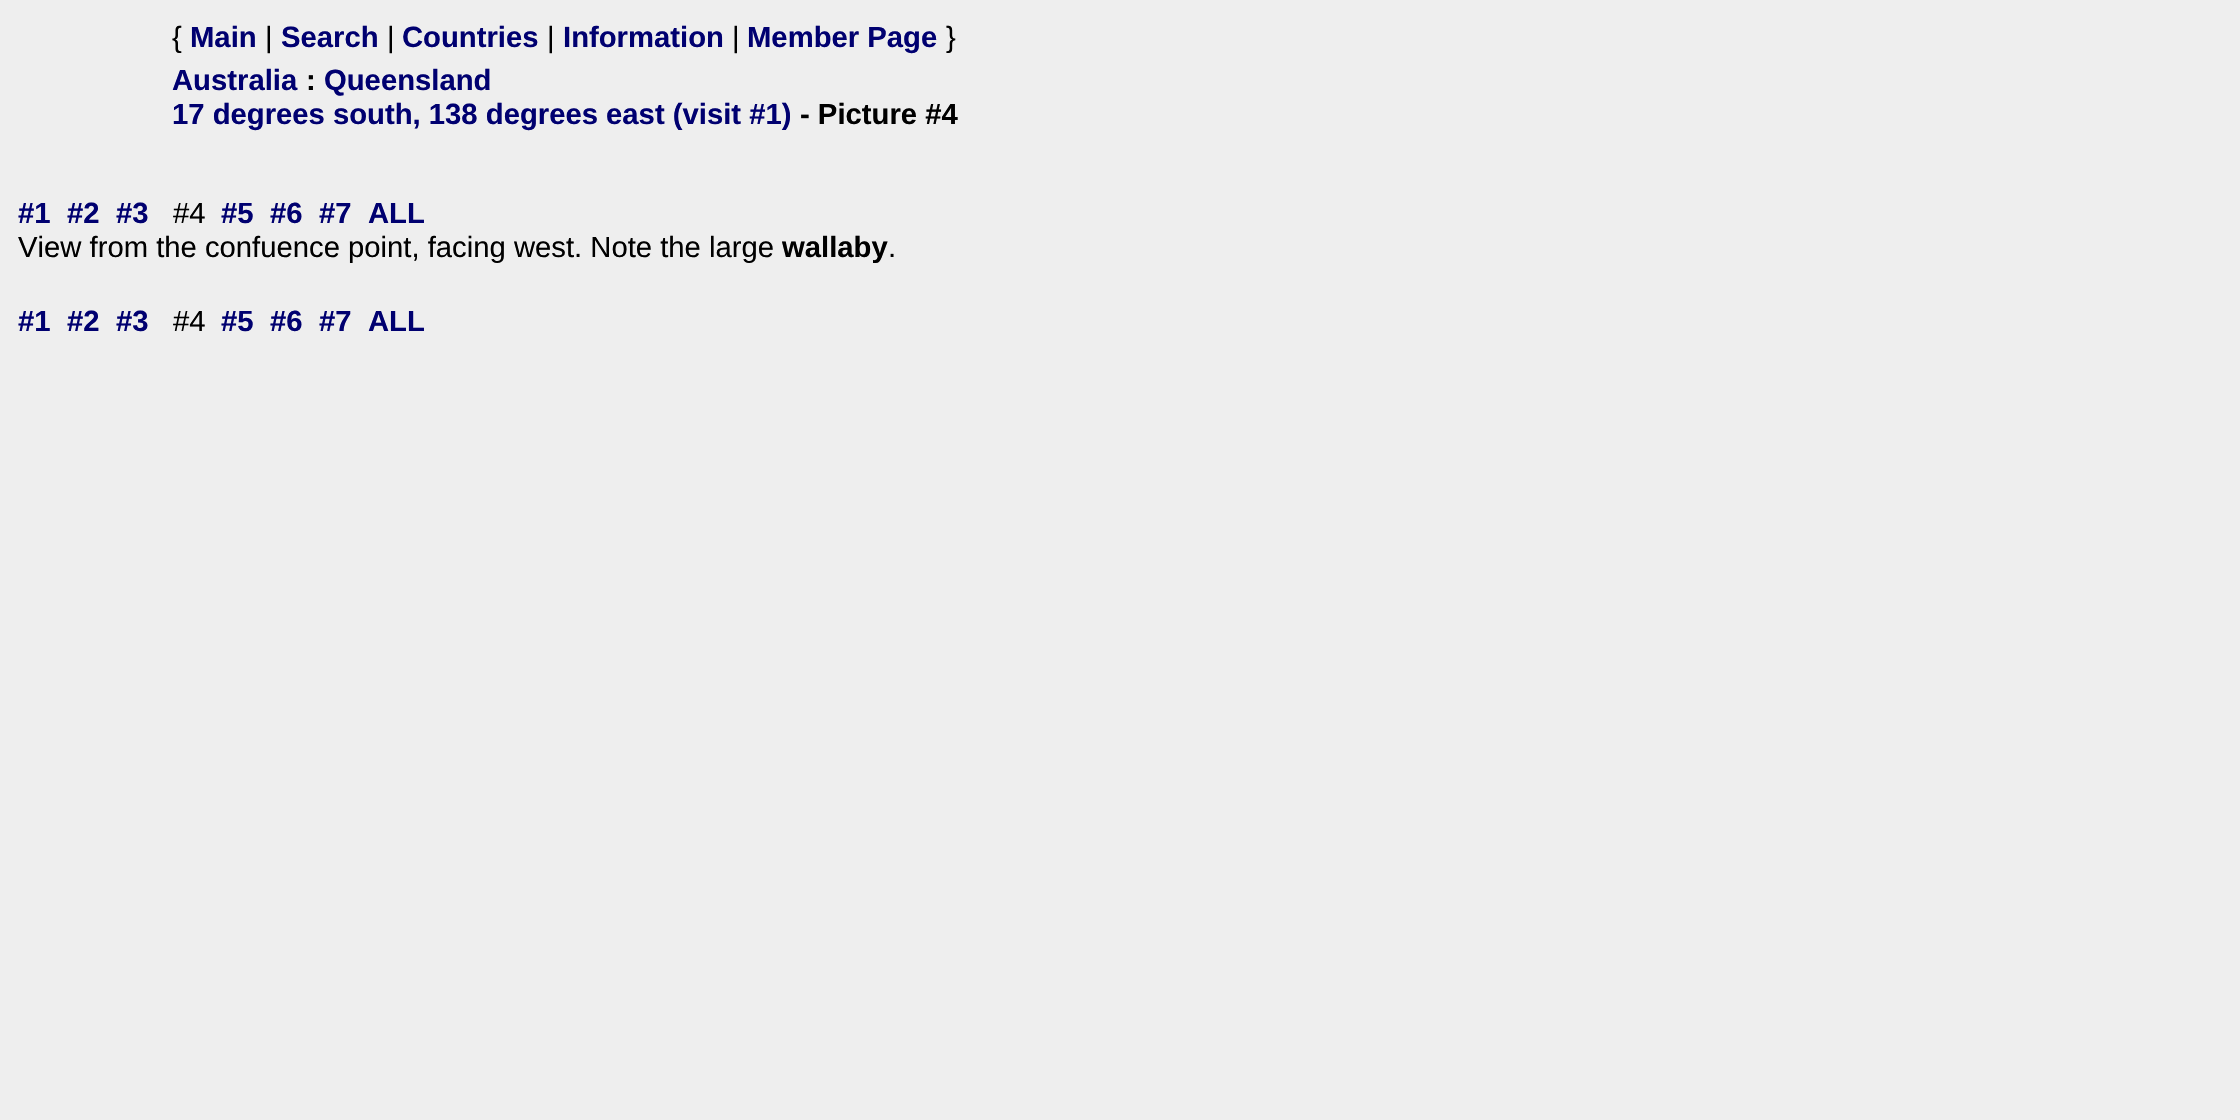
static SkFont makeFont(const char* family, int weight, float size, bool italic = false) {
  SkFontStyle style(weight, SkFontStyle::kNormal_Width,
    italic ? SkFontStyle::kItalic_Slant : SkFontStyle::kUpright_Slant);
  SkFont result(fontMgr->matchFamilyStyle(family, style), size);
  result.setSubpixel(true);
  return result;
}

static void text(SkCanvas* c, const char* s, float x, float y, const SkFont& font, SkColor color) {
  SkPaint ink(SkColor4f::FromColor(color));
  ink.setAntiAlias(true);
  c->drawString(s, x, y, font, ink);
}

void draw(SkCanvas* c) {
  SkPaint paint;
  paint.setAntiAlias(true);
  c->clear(0xffeeeeee);
  SkFont face1 = makeFont("Liberation Sans", 400, 29.25f);
  text(c, "{", 172, 47, face1, 0xff000000);
  SkFont face2 = makeFont("Liberation Sans", 700, 29.25f);
  text(c, "Main", 190, 47, face2, 0xff000070);
  text(c, "|", 265, 47, face1, 0xff000000);
  text(c, "Search", 281, 47, face2, 0xff000070);
  text(c, "|", 387, 47, face1, 0xff000000);
  text(c, "Countries", 402, 47, face2, 0xff000070);
  text(c, "|", 547, 47, face1, 0xff000000);
  text(c, "Information", 563, 47, face2, 0xff000070);
  text(c, "|", 732, 47, face1, 0xff000000);
  text(c, "Member Page", 747, 47, face2, 0xff000070);
  text(c, "}", 946, 47, face1, 0xff000000);
  text(c, "Australia", 172, 90, face2, 0xff000070);
  text(c, ":", 306, 90, face2, 0xff000000);
  text(c, "Queensland", 324, 90, face2, 0xff000070);
  text(c, "17 degrees south, 138 degrees east (visit #1)", 172, 124, face2, 0xff000070);
  text(c, "- Picture #4", 800, 124, face2, 0xff000000);
  text(c, "#1", 18, 223, face2, 0xff000070);
  text(c, "#2", 67, 223, face2, 0xff000070);
  text(c, "#3", 116, 223, face2, 0xff000070);
  text(c, "#4", 173, 223, face1, 0xff000000);
  text(c, "#5", 221, 223, face2, 0xff000070);
  text(c, "#6", 270, 223, face2, 0xff000070);
  text(c, "#7", 319, 223, face2, 0xff000070);
  text(c, "ALL", 368, 223, face2, 0xff000070);
  text(c, "View from the confuence point, facing west. Note the large", 18, 257, face1, 0xff000000);
  text(c, "wallaby", 782, 257, face2, 0xff000000);
  text(c, ".", 888, 257, face1, 0xff000000);
  text(c, "#1", 18, 331, face2, 0xff000070);
  text(c, "#2", 67, 331, face2, 0xff000070);
  text(c, "#3", 116, 331, face2, 0xff000070);
  text(c, "#4", 173, 331, face1, 0xff000000);
  text(c, "#5", 221, 331, face2, 0xff000070);
  text(c, "#6", 270, 331, face2, 0xff000070);
  text(c, "#7", 319, 331, face2, 0xff000070);
  text(c, "ALL", 368, 331, face2, 0xff000070);
}
